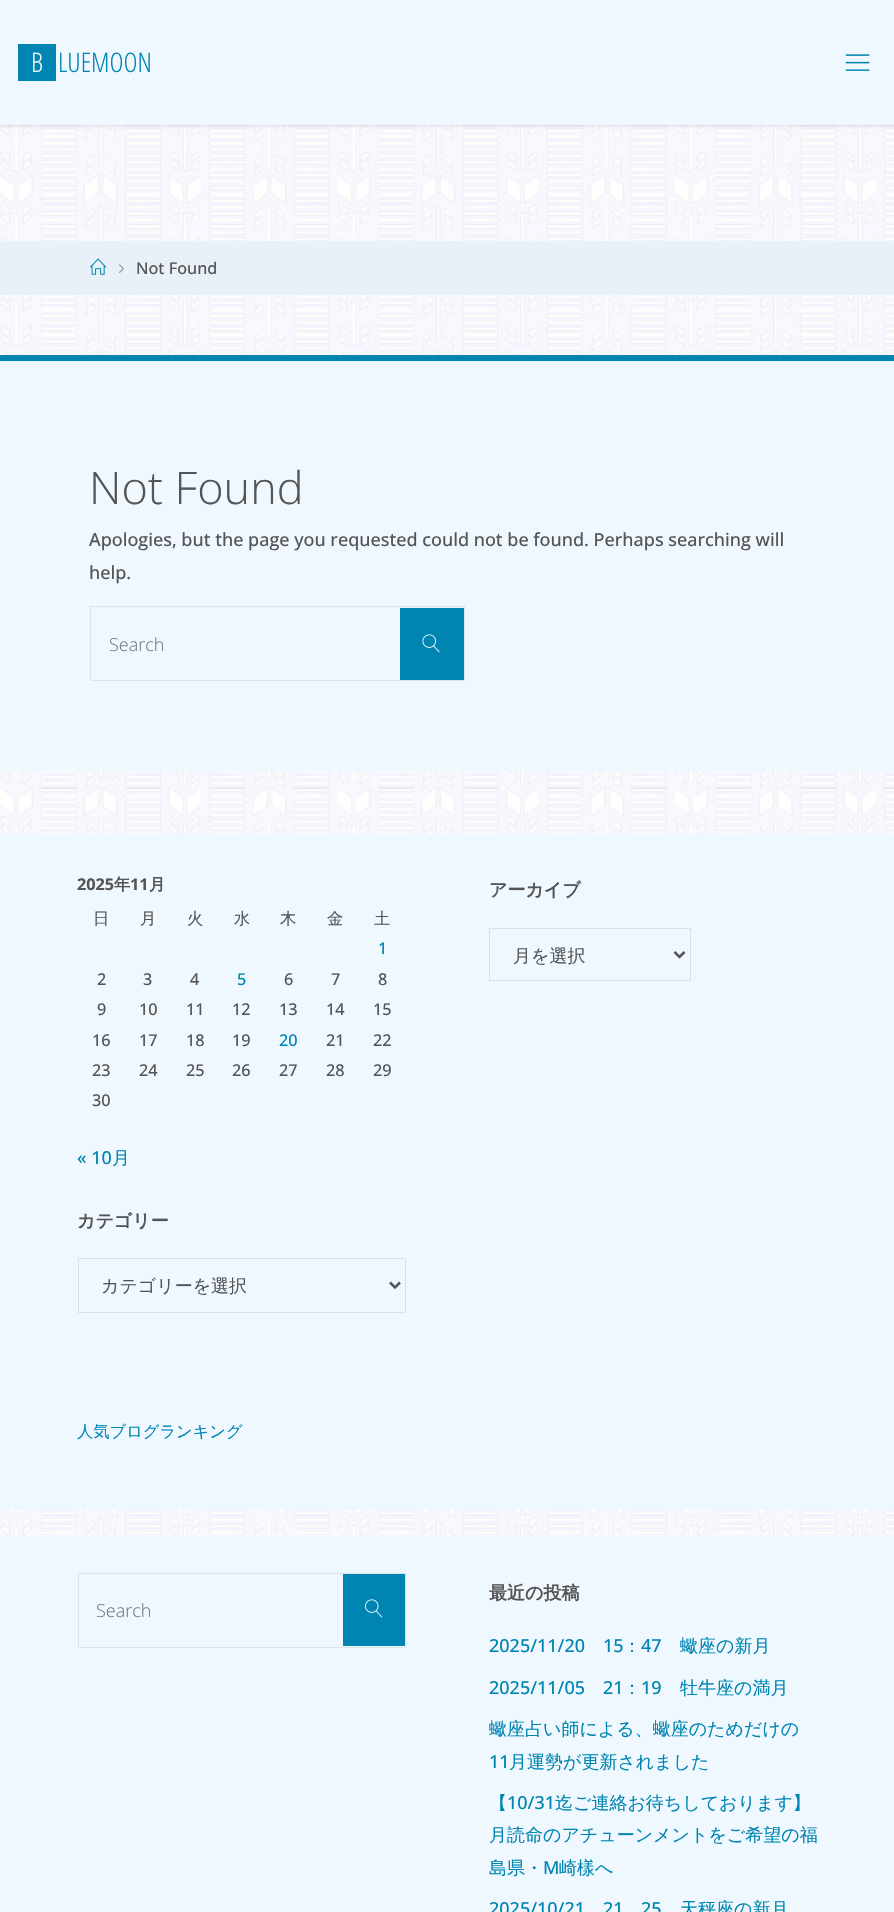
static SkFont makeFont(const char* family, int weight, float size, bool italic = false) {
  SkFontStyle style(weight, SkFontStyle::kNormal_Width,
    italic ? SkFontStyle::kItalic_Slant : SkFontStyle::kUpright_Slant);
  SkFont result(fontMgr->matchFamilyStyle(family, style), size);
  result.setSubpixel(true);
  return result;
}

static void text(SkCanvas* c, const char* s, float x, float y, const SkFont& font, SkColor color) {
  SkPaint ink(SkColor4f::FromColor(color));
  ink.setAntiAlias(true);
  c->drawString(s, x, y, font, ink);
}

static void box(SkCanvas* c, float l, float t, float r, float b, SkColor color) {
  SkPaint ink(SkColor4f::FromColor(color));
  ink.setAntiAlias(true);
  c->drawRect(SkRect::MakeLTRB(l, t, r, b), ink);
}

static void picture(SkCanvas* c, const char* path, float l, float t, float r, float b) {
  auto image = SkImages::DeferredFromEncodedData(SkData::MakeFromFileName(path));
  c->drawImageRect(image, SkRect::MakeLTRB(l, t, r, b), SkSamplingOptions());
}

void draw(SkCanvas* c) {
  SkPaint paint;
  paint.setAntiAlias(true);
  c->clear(0xffffffff);
  picture(c, "img_01.png", 0, 125, 894, 1536);
  paint.setColor(0x33000000);
  paint.setMaskFilter(SkMaskFilter::MakeBlur(kNormal_SkBlurStyle, 2));
  c->drawRect(SkRect::MakeLTRB(0, 0, 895, 125), paint);
  paint.setMaskFilter(nullptr);
  box(c, 0, 0, 894, 125, 0xfff0f8ff);
  box(c, 18, 44, 56, 81, 0xff0085b2);
  SkFont face1 = makeFont("Open Sans Condensed", 300, 27);
  text(c, "B", 31, 72, face1, 0xfff0f8ff);
  text(c, "LUEMOON", 58, 72, face1, 0xff0085b2);
  picture(c, "img_02.png", 845, 54, 870, 71);
  box(c, 0, 241, 894, 295, 0xffe9f1f8);
  picture(c, "img_03.png", 90, 258, 107, 275);
  picture(c, "img_04.png", 119, 264, 124, 274);
  SkFont face2 = makeFont("Open Sans", 500, 16.25f);
  text(c, "Not Found", 136, 274, face2, 0xff555555);
  box(c, 0, 361, 894, 771, 0xfff0f8ff);
  box(c, 0, 355, 894, 361, 0xff0085b2);
  SkFont face3 = makeFont("Open Sans", 300, 45);
  text(c, "Not Found", 89, 504, face3, 0xff555555);
  SkFont face4 = makeFont("Open Sans", 500, 18);
  text(c, "Apologies, but the page you requested could not be found. Perhaps searching will", 89, 546, face4, 0xff555555);
  text(c, "help.", 89, 579, face4, 0xff555555);
  paint.setStyle(SkPaint::kStroke_Style);
  paint.setStrokeWidth(1);
  paint.setColor(0xffdce4eb);
  c->drawRect(SkRect::MakeLTRB(90.5f, 606.5f, 464.5f, 680.5f), paint);
  box(c, 400, 608, 464, 680, 0xff0085b2);
  SkFont face5 = makeFont("Open Sans", 300, 18);
  text(c, "Search", 109, 651, face5, 0xff757575);
  picture(c, "img_05.png", 422, 634, 440, 653);
  box(c, 0, 834, 894, 1510, 0xfff0f8ff);
  SkFont face6 = makeFont("Open Sans", 700, 16.25f);
  text(c, "2025", 77, 890, face6, 0xff555555);
  SkFont face7 = makeFont("WenQuanYi Zen Hei", 700, 16.25f);
  text(c, "年", 114, 890, face7, 0xff555555);
  text(c, "11", 130, 890, face6, 0xff555555);
  text(c, "月", 149, 890, face7, 0xff555555);
  SkFont face8 = makeFont("WenQuanYi Zen Hei", 500, 16.25f);
  text(c, "日", 93, 924, face8, 0xff555555);
  text(c, "月", 140, 924, face8, 0xff555555);
  text(c, "火", 187, 924, face8, 0xff555555);
  text(c, "水", 234, 924, face8, 0xff555555);
  text(c, "木", 280, 924, face8, 0xff555555);
  text(c, "金", 327, 924, face8, 0xff555555);
  text(c, "土", 374, 924, face8, 0xff555555);
  text(c, "1", 378, 954, face2, 0xff0085b2);
  text(c, "2", 97, 985, face2, 0xff555555);
  text(c, "3", 143, 985, face2, 0xff555555);
  text(c, "4", 190, 985, face2, 0xff555555);
  text(c, "5", 237, 985, face2, 0xff0085b2);
  text(c, "6", 284, 985, face2, 0xff555555);
  text(c, "7", 331, 985, face2, 0xff555555);
  text(c, "8", 378, 985, face2, 0xff555555);
  text(c, "9", 97, 1015, face2, 0xff555555);
  text(c, "10", 139, 1015, face2, 0xff555555);
  text(c, "11", 186, 1015, face2, 0xff555555);
  text(c, "12", 232, 1015, face2, 0xff555555);
  text(c, "13", 279, 1015, face2, 0xff555555);
  text(c, "14", 326, 1015, face2, 0xff555555);
  text(c, "15", 373, 1015, face2, 0xff555555);
  text(c, "16", 92, 1046, face2, 0xff555555);
  text(c, "17", 139, 1046, face2, 0xff555555);
  text(c, "18", 186, 1046, face2, 0xff555555);
  text(c, "19", 232, 1046, face2, 0xff555555);
  text(c, "20", 279, 1046, face2, 0xff0085b2);
  text(c, "21", 326, 1046, face2, 0xff555555);
  text(c, "22", 373, 1046, face2, 0xff555555);
  text(c, "23", 92, 1076, face2, 0xff555555);
  text(c, "24", 139, 1076, face2, 0xff555555);
  text(c, "25", 186, 1076, face2, 0xff555555);
  text(c, "26", 232, 1076, face2, 0xff555555);
  text(c, "27", 279, 1076, face2, 0xff555555);
  text(c, "28", 326, 1076, face2, 0xff555555);
  text(c, "29", 373, 1076, face2, 0xff555555);
  text(c, "30", 92, 1106, face2, 0xff555555);
  text(c, "« 10", 77, 1164, face4, 0xff0085b2);
  SkFont face9 = makeFont("WenQuanYi Zen Hei", 500, 18);
  text(c, "月", 112, 1164, face9, 0xff0085b2);
  SkFont face10 = makeFont("WenQuanYi Zen Hei", 700, 18);
  text(c, "アーカイブ", 489, 896, face10, 0xff555555);
  paint.setColor(0xffdae2e9);
  c->drawRect(SkRect::MakeLTRB(489.5f, 928.5f, 690.5f, 980.5f), paint);
  paint.setStrokeWidth(2.5f);
  paint.setColor(0xff555555);
  c->drawPath(SkPathBuilder().moveTo(674.5f, 952).lineTo(679.5f, 957).lineTo(684.5f, 952).detach(), paint);
  text(c, "月を選択", 513, 962, face9, 0xff555555);
  text(c, "カテゴリー", 77, 1227, face10, 0xff555555);
  paint.setStrokeWidth(1);
  paint.setColor(0xffdae2e9);
  c->drawRect(SkRect::MakeLTRB(78.5f, 1258.5f, 405.5f, 1312.5f), paint);
  paint.setStrokeWidth(2.5f);
  paint.setColor(0xff555555);
  c->drawPath(SkPathBuilder().moveTo(390, 1282.5f).lineTo(395, 1287.5f).lineTo(400, 1282.5f).detach(), paint);
  text(c, "カテゴリーを選択", 101, 1292, face9, 0xff555555);
  text(c, "人気ブログランキング", 77, 1437, face8, 0xff0085b2);
  box(c, 0, 1536, 894, 1912, 0xfff0f8ff);
  paint.setStrokeWidth(1);
  paint.setColor(0xffdce4eb);
  c->drawRect(SkRect::MakeLTRB(78.5f, 1573.5f, 405.5f, 1647.5f), paint);
  box(c, 343, 1574, 405, 1646, 0xff0085b2);
  text(c, "Search", 96, 1617, face5, 0xff757575);
  picture(c, "img_06.png", 365, 1599, 383, 1618);
  text(c, "最近の投稿", 489, 1599, face10, 0xff555555);
  text(c, "2025/11/20", 489, 1652, face4, 0xff0085b2);
  text(c, "15", 603, 1652, face4, 0xff0085b2);
  text(c, "：", 623, 1652, face9, 0xff0085b2);
  text(c, "47", 641, 1652, face4, 0xff0085b2);
  text(c, "蠍座の新月", 680, 1652, face9, 0xff0085b2);
  text(c, "2025/11/05", 489, 1694, face4, 0xff0085b2);
  text(c, "21", 603, 1694, face4, 0xff0085b2);
  text(c, "：", 623, 1694, face9, 0xff0085b2);
  text(c, "19", 641, 1694, face4, 0xff0085b2);
  text(c, "牡牛座の満月", 680, 1694, face9, 0xff0085b2);
  text(c, "蠍座占い師による、蠍座のためだけの", 489, 1735, face9, 0xff0085b2);
  text(c, "11", 489, 1768, face4, 0xff0085b2);
  text(c, "月運勢が更新されました", 509, 1768, face9, 0xff0085b2);
  text(c, "【", 489, 1809, face9, 0xff0085b2);
  text(c, "10/31", 507, 1809, face4, 0xff0085b2);
  text(c, "迄ご連絡お待ちしております】", 555, 1809, face9, 0xff0085b2);
  text(c, "月読命のアチューンメントをご希望の福", 489, 1841, face9, 0xff0085b2);
  text(c, "島県・", 489, 1874, face9, 0xff0085b2);
  text(c, "M", 543, 1874, face4, 0xff0085b2);
  text(c, "崎樣へ", 559, 1874, face9, 0xff0085b2);
  text(c, "2025/10/21", 489, 1915, face4, 0xff0085b2);
  text(c, "21", 603, 1915, face4, 0xff0085b2);
  text(c, "25", 641, 1915, face4, 0xff0085b2);
  text(c, "天秤座の新月", 680, 1915, face9, 0xff0085b2);
}
